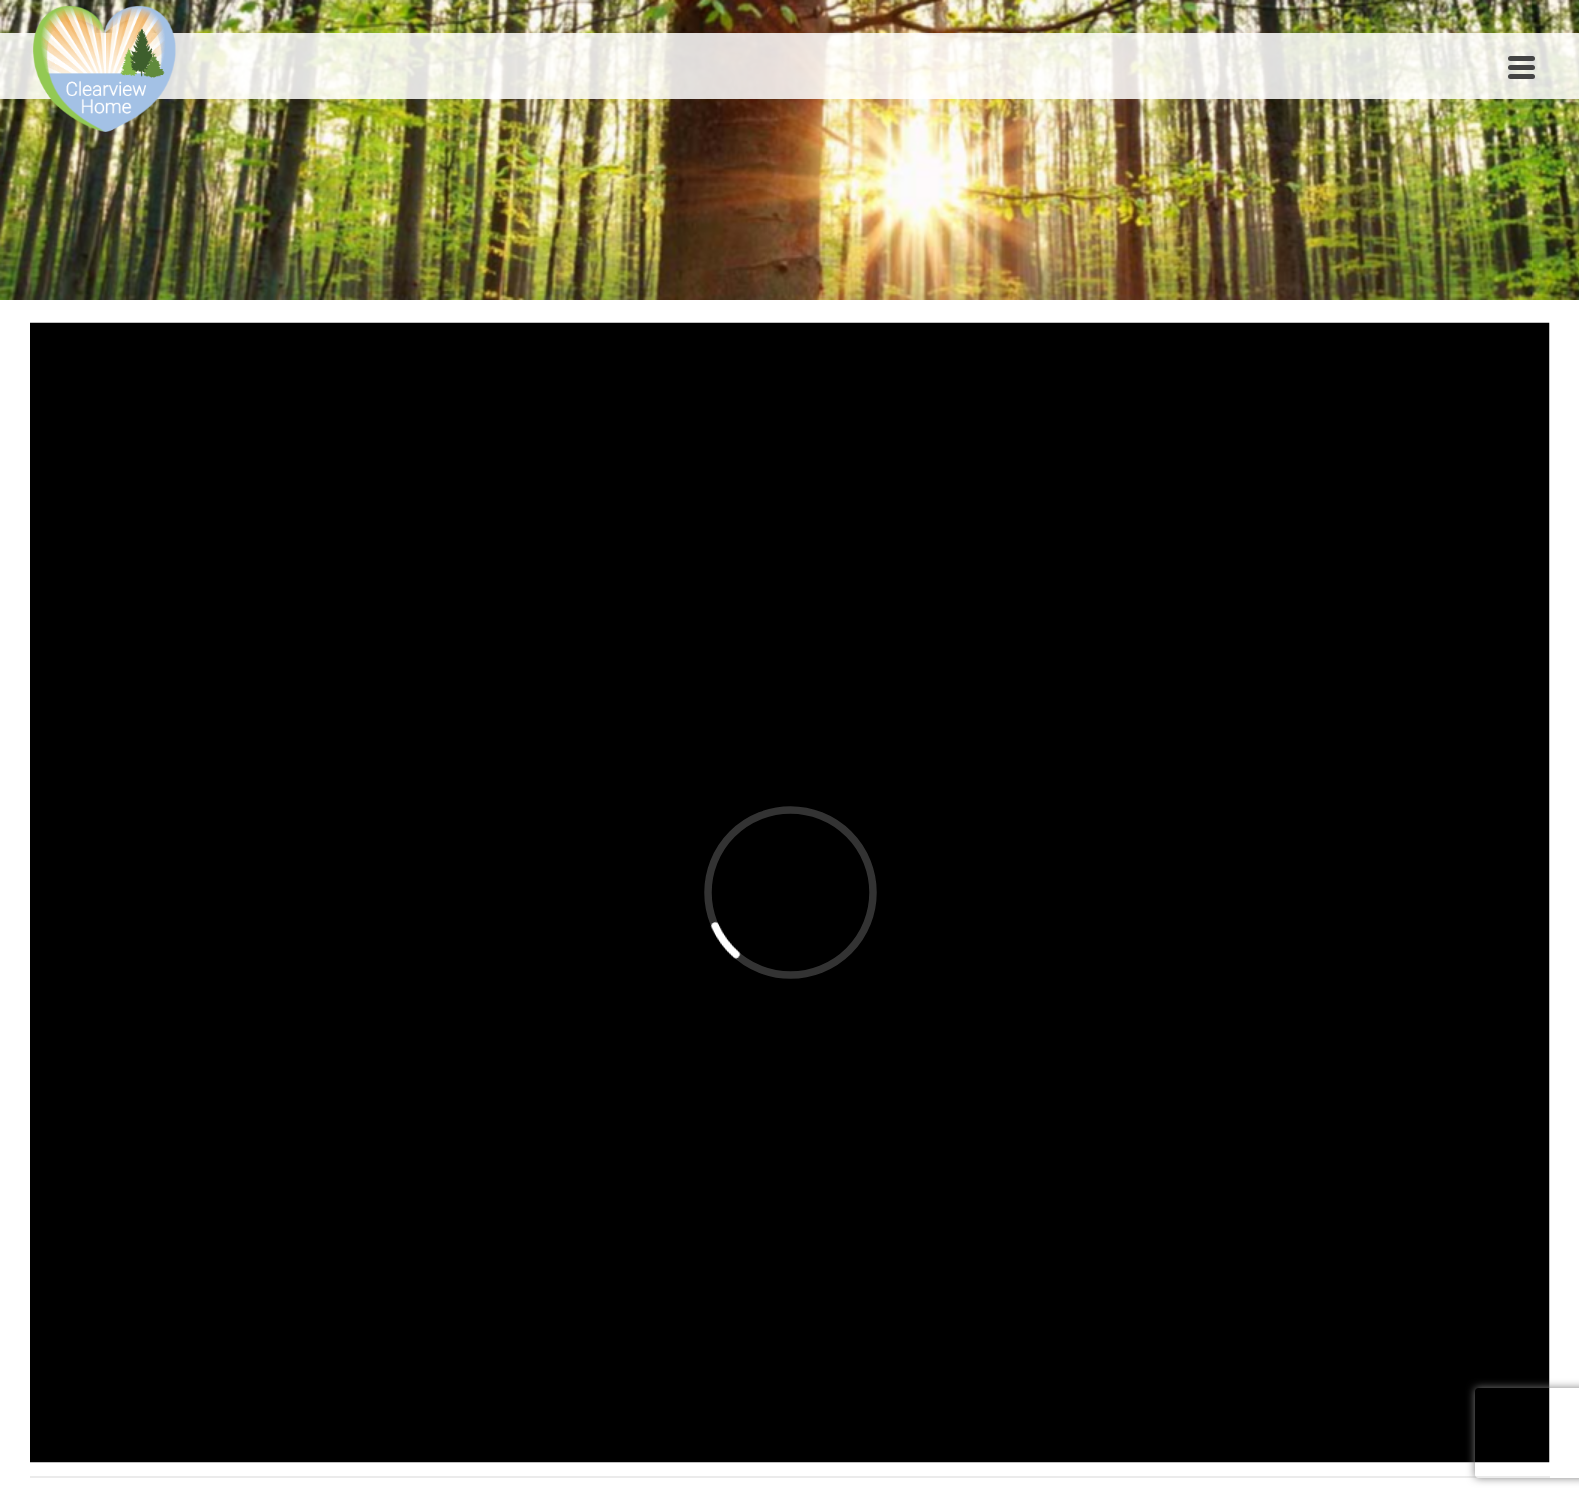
static void box(SkCanvas* c, float l, float t, float r, float b, SkColor color) {
  SkPaint ink(SkColor4f::FromColor(color));
  ink.setAntiAlias(true);
  c->drawRect(SkRect::MakeLTRB(l, t, r, b), ink);
}

static void roundBox(SkCanvas* c, float l, float t, float r, float b, float radius, SkColor color) {
  SkPaint ink(SkColor4f::FromColor(color));
  ink.setAntiAlias(true);
  c->drawRoundRect(SkRect::MakeLTRB(l, t, r, b), radius, radius, ink);
}

static void picture(SkCanvas* c, const char* path, float l, float t, float r, float b) {
  auto image = SkImages::DeferredFromEncodedData(SkData::MakeFromFileName(path));
  c->drawImageRect(image, SkRect::MakeLTRB(l, t, r, b), SkSamplingOptions());
}

void draw(SkCanvas* c) {
  SkPaint paint;
  paint.setAntiAlias(true);
  c->clear(0xffffffff);
  picture(c, "img_01.png", 0, 0, 1579, 300);
  picture(c, "img_02.png", 30, 322, 1550, 1463);
  box(c, 30, 1476, 1550, 1478, 0xffebebeb);
  box(c, 0, 33, 1579, 99, 0xd9ffffff);
  picture(c, "img_03.png", 33, 5, 176, 132);
  roundBox(c, 1508, 56, 1535, 61, 2.5f, 0xff444444);
  roundBox(c, 1508, 65, 1535, 70, 2.5f, 0xff444444);
  roundBox(c, 1508, 74, 1535, 79, 2.5f, 0xff444444);
  c->save();
  c->clipPath(SkPathBuilder(SkPathFillType::kEvenOdd).moveTo(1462, 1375).lineTo(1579, 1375).lineTo(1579, 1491).lineTo(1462, 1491).close().moveTo(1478, 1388).lineTo(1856, 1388).cubicTo(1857.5f, 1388, 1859, 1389.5f, 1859, 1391).lineTo(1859, 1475).cubicTo(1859, 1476.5f, 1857.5f, 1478, 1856, 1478).lineTo(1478, 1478).cubicTo(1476.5f, 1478, 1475, 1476.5f, 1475, 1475).lineTo(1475, 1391).cubicTo(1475, 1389.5f, 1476.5f, 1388, 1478, 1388).close().detach(), true);
  paint.setColor(0xff808080);
  paint.setMaskFilter(SkMaskFilter::MakeBlur(kNormal_SkBlurStyle, 4));
  c->drawRoundRect(SkRect::MakeLTRB(1475, 1388, 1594, 1478), 3, 3, paint);
  paint.setMaskFilter(nullptr);
  c->restore();
}
